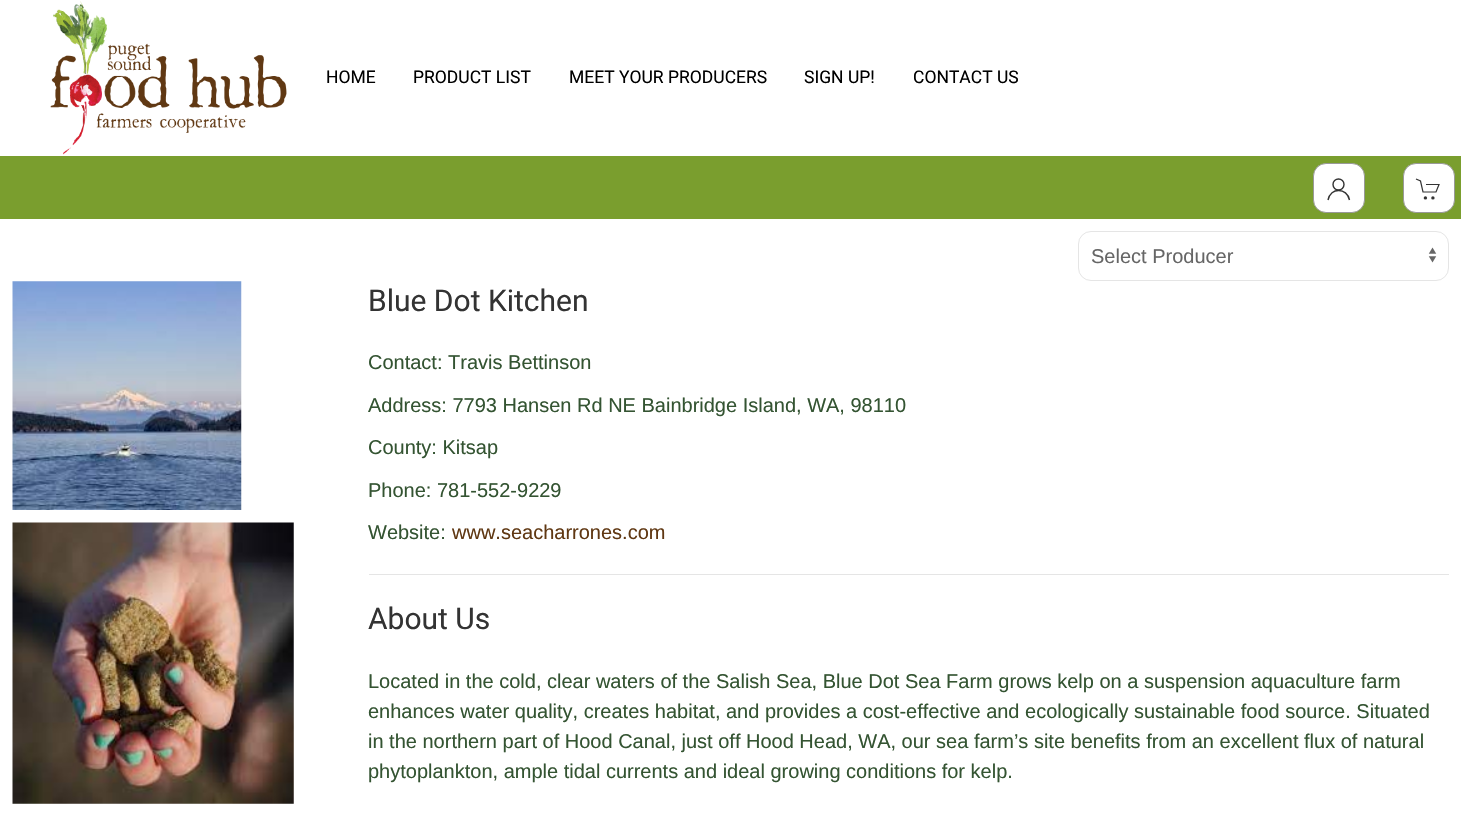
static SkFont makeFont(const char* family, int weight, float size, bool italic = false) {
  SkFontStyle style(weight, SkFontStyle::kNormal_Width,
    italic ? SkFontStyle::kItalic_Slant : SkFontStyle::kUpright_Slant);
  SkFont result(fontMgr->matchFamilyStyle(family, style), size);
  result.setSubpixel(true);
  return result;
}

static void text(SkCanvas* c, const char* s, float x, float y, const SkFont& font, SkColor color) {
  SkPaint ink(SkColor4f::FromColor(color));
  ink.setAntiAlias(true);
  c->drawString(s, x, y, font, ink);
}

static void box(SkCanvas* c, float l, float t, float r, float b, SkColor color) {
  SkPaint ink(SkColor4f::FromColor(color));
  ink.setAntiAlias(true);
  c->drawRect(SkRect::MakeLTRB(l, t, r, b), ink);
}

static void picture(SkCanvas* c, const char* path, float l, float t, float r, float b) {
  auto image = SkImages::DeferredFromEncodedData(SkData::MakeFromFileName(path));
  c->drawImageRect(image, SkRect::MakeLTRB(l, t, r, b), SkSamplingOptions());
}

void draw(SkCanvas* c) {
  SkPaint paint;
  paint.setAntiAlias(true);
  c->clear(0xffffffff);
  picture(c, "img_01.png", 50, 1, 287, 155);
  SkFont face1 = makeFont("Roboto", 400, 17.5f);
  text(c, "HOME", 326, 83, face1, 0xff000000);
  text(c, "PRODUCT LIST", 413, 83, face1, 0xff000000);
  text(c, "MEET YOUR PRODUCERS", 569, 83, face1, 0xff000000);
  text(c, "SIGN UP!", 804, 83, face1, 0xff000000);
  text(c, "CONTACT US", 913, 83, face1, 0xff000000);
  box(c, 0, 156, 1461, 219, 0xff7a9e2e);
  paint.setColor(0xffffffff);
  c->drawRoundRect(SkRect::MakeLTRB(1313.5f, 163.5f, 1364.5f, 212.5f), 12.5f, 12.5f, paint);
  paint.setStyle(SkPaint::kStroke_Style);
  paint.setStrokeWidth(1);
  paint.setColor(0xff999999);
  c->drawRoundRect(SkRect::MakeLTRB(1313.5f, 163.5f, 1364.5f, 212.5f), 12.5f, 12.5f, paint);
  paint.setStrokeWidth(1.4f);
  paint.setColor(0xff333333);
  c->drawCircle(1338.5f, 184.5f, 5.5f, paint);
  c->drawPath(SkPathBuilder().moveTo(1328, 200).cubicTo(1330.5f, 187, 1347, 187.5f, 1349.5f, 200).detach(), paint);
  paint.setStyle(SkPaint::kFill_Style);
  paint.setColor(0xffffffff);
  c->drawRoundRect(SkRect::MakeLTRB(1403.5f, 163.5f, 1454.5f, 212.5f), 12.5f, 12.5f, paint);
  paint.setStyle(SkPaint::kStroke_Style);
  paint.setStrokeWidth(1);
  paint.setColor(0xff999999);
  c->drawRoundRect(SkRect::MakeLTRB(1403.5f, 163.5f, 1454.5f, 212.5f), 12.5f, 12.5f, paint);
  paint.setStrokeWidth(1.2f);
  paint.setColor(0xff333333);
  c->drawPath(SkPathBuilder().moveTo(1416, 179).lineTo(1420.5f, 181).lineTo(1423, 192).lineTo(1436, 192).lineTo(1439, 184.5f).lineTo(1426, 184.5f).detach(), paint);
  paint.setStyle(SkPaint::kFill_Style);
  c->drawCircle(1425.4f, 197.9f, 1.7f, paint);
  c->drawCircle(1432.9f, 197.9f, 1.7f, paint);
  picture(c, "img_02.png", 1428, 247, 1437, 263);
  paint.setStyle(SkPaint::kStroke_Style);
  paint.setStrokeWidth(1);
  paint.setColor(0xffe5e5e5);
  c->drawRoundRect(SkRect::MakeLTRB(1078.5f, 231.5f, 1448.5f, 280.5f), 12.5f, 12.5f, paint);
  SkFont face2 = makeFont("Liberation Sans", 400, 20);
  text(c, "Select Producer", 1091, 263, face2, 0xff666666);
  picture(c, "img_03.png", 12, 281, 242, 510);
  picture(c, "img_04.png", 12, 522, 294, 804);
  SkFont face3 = makeFont("Roboto", 400, 30);
  text(c, "Blue Dot Kitchen", 368, 311, face3, 0xff333333);
  text(c, "Contact: Travis Bettinson", 368, 369, face2, 0xff345432);
  text(c, "Address: 7793 Hansen Rd NE Bainbridge Island, WA, 98110", 368, 412, face2, 0xff345432);
  text(c, "County: Kitsap", 368, 454, face2, 0xff345432);
  text(c, "Phone: 781-552-9229", 368, 497, face2, 0xff345432);
  text(c, "Website:", 368, 539, face2, 0xff345432);
  text(c, "www.seacharrones.com", 452, 539, face2, 0xff603813);
  box(c, 369, 574, 1449, 575, 0xffe5e5e5);
  text(c, "About Us", 368, 629, face3, 0xff333333);
  text(c, "Located in the cold, clear waters of the Salish Sea, Blue Dot Sea Farm grows kelp on a suspension aquaculture farm", 368, 688, face2, 0xff345432);
  text(c, "enhances water quality, creates habitat, and provides a cost-effective and ecologically sustainable food source. Situated", 368, 718, face2, 0xff345432);
  text(c, "in the northern part of Hood Canal, just off Hood Head, WA, our sea farm’s site benefits from an excellent flux of natural", 368, 748, face2, 0xff345432);
  text(c, "phytoplankton, ample tidal currents and ideal growing conditions for kelp.", 368, 778, face2, 0xff345432);
}
